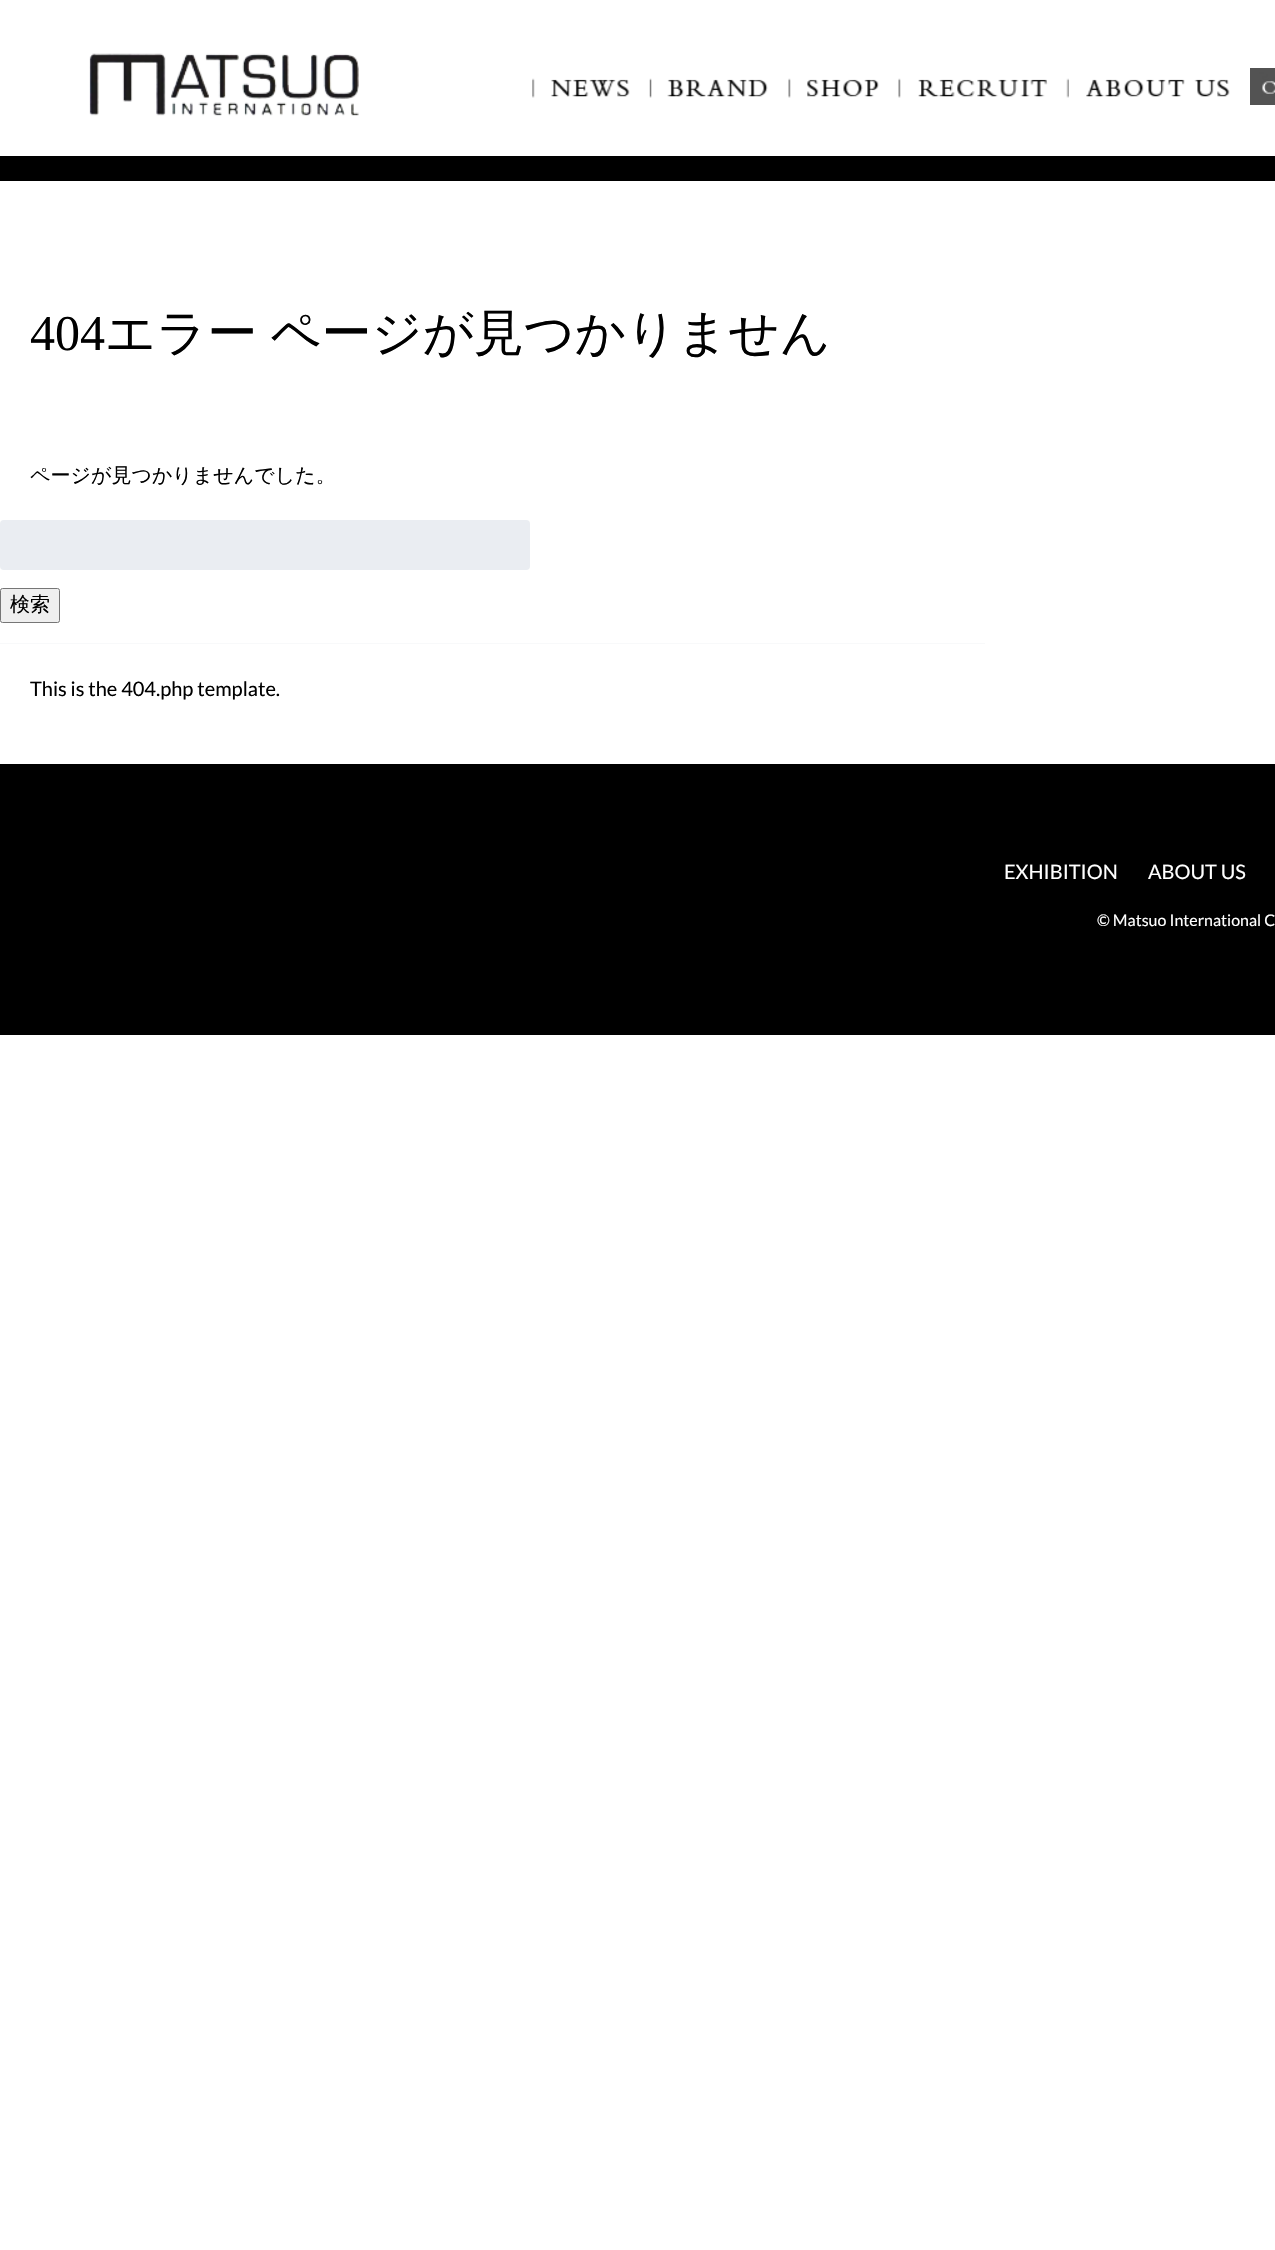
static SkFont makeFont(const char* family, int weight, float size, bool italic = false) {
  SkFontStyle style(weight, SkFontStyle::kNormal_Width,
    italic ? SkFontStyle::kItalic_Slant : SkFontStyle::kUpright_Slant);
  SkFont result(fontMgr->matchFamilyStyle(family, style), size);
  result.setSubpixel(true);
  return result;
}

static void text(SkCanvas* c, const char* s, float x, float y, const SkFont& font, SkColor color) {
  SkPaint ink(SkColor4f::FromColor(color));
  ink.setAntiAlias(true);
  c->drawString(s, x, y, font, ink);
}

static void spacedText(SkCanvas* c, const char* s, float x, float y, const SkFont& font, const SkPaint& ink, float letter, float word) {
  std::vector<SkGlyphID> glyphs(font.countText(s, strlen(s), SkTextEncoding::kUTF8));
  std::vector<float> xs(glyphs.size());
  font.textToGlyphs(s, strlen(s), SkTextEncoding::kUTF8, glyphs);
  font.getXPos(glyphs, xs, x);
  float extra = 0;
  for (size_t i = 0; i < glyphs.size(); i++) {
    xs[i] += extra;
    extra += letter + word * (glyphs[i] == font.unicharToGlyph(' '));
  }
  c->drawTextBlob(SkTextBlob::MakeFromPosHGlyphs(glyphs, xs, y, font), 0, 0, ink);
}

static void box(SkCanvas* c, float l, float t, float r, float b, SkColor color) {
  SkPaint ink(SkColor4f::FromColor(color));
  ink.setAntiAlias(true);
  c->drawRect(SkRect::MakeLTRB(l, t, r, b), ink);
}

static void roundBox(SkCanvas* c, float l, float t, float r, float b, float radius, SkColor color) {
  SkPaint ink(SkColor4f::FromColor(color));
  ink.setAntiAlias(true);
  c->drawRoundRect(SkRect::MakeLTRB(l, t, r, b), radius, radius, ink);
}

static void picture(SkCanvas* c, const char* path, float l, float t, float r, float b) {
  auto image = SkImages::DeferredFromEncodedData(SkData::MakeFromFileName(path));
  c->drawImageRect(image, SkRect::MakeLTRB(l, t, r, b), SkSamplingOptions());
}

void draw(SkCanvas* c) {
  SkPaint paint;
  paint.setAntiAlias(true);
  c->clear(0xffffffff);
  box(c, 0, 156, 1275, 181, 0xff000000);
  picture(c, "img_01.png", 89, 53, 359, 116);
  picture(c, "img_02.png", 532, 78, 652, 98);
  picture(c, "img_03.png", 667, 78, 791, 98);
  picture(c, "img_04.png", 807, 78, 901, 98);
  picture(c, "img_05.png", 918, 78, 1069, 98);
  picture(c, "img_06.png", 1086, 79, 1230, 97);
  picture(c, "img_07.png", 1250, 68, 1275, 105);
  SkFont face1 = makeFont("Liberation Serif", 400, 50);
  text(c, "404", 30, 350, face1, 0xff000000);
  SkFont face2 = makeFont("WenQuanYi Zen Hei", 500, 50);
  paint.setColor(0xff000000);
  spacedText(c, "エラー ページが見つかりません", 105, 350, face2, paint, 0, -2);
  SkFont face3 = makeFont("WenQuanYi Zen Hei", 500, 20);
  text(c, "ページが見つかりませんでした。", 30, 482, face3, 0xff000000);
  roundBox(c, 0, 520, 530, 570, 4, 0xffeaedf2);
  paint.setColor(0xffefefef);
  c->drawRoundRect(SkRect::MakeLTRB(0.5f, 588.5f, 59.5f, 622.5f), 2, 2, paint);
  paint.setStyle(SkPaint::kStroke_Style);
  paint.setStrokeWidth(1);
  paint.setColor(0xff767676);
  c->drawRoundRect(SkRect::MakeLTRB(0.5f, 588.5f, 59.5f, 622.5f), 2, 2, paint);
  text(c, "検索", 10, 611, face3, 0xff000000);
  box(c, 0, 643, 985, 644, 0xfff8f9fa);
  SkFont face4 = makeFont("Lato", 400, 20);
  text(c, "This is the 404.php template.", 30, 696, face4, 0xff000000);
  box(c, 0, 764, 1275, 1035, 0xff000000);
  text(c, "EXHIBITION", 1004, 879, face4, 0xffffffff);
  text(c, "ABOUT US", 1148, 879, face4, 0xffffffff);
  SkFont face5 = makeFont("Lato", 400, 16);
  text(c, "© Matsuo International C", 1097, 926, face5, 0xffffffff);
}
